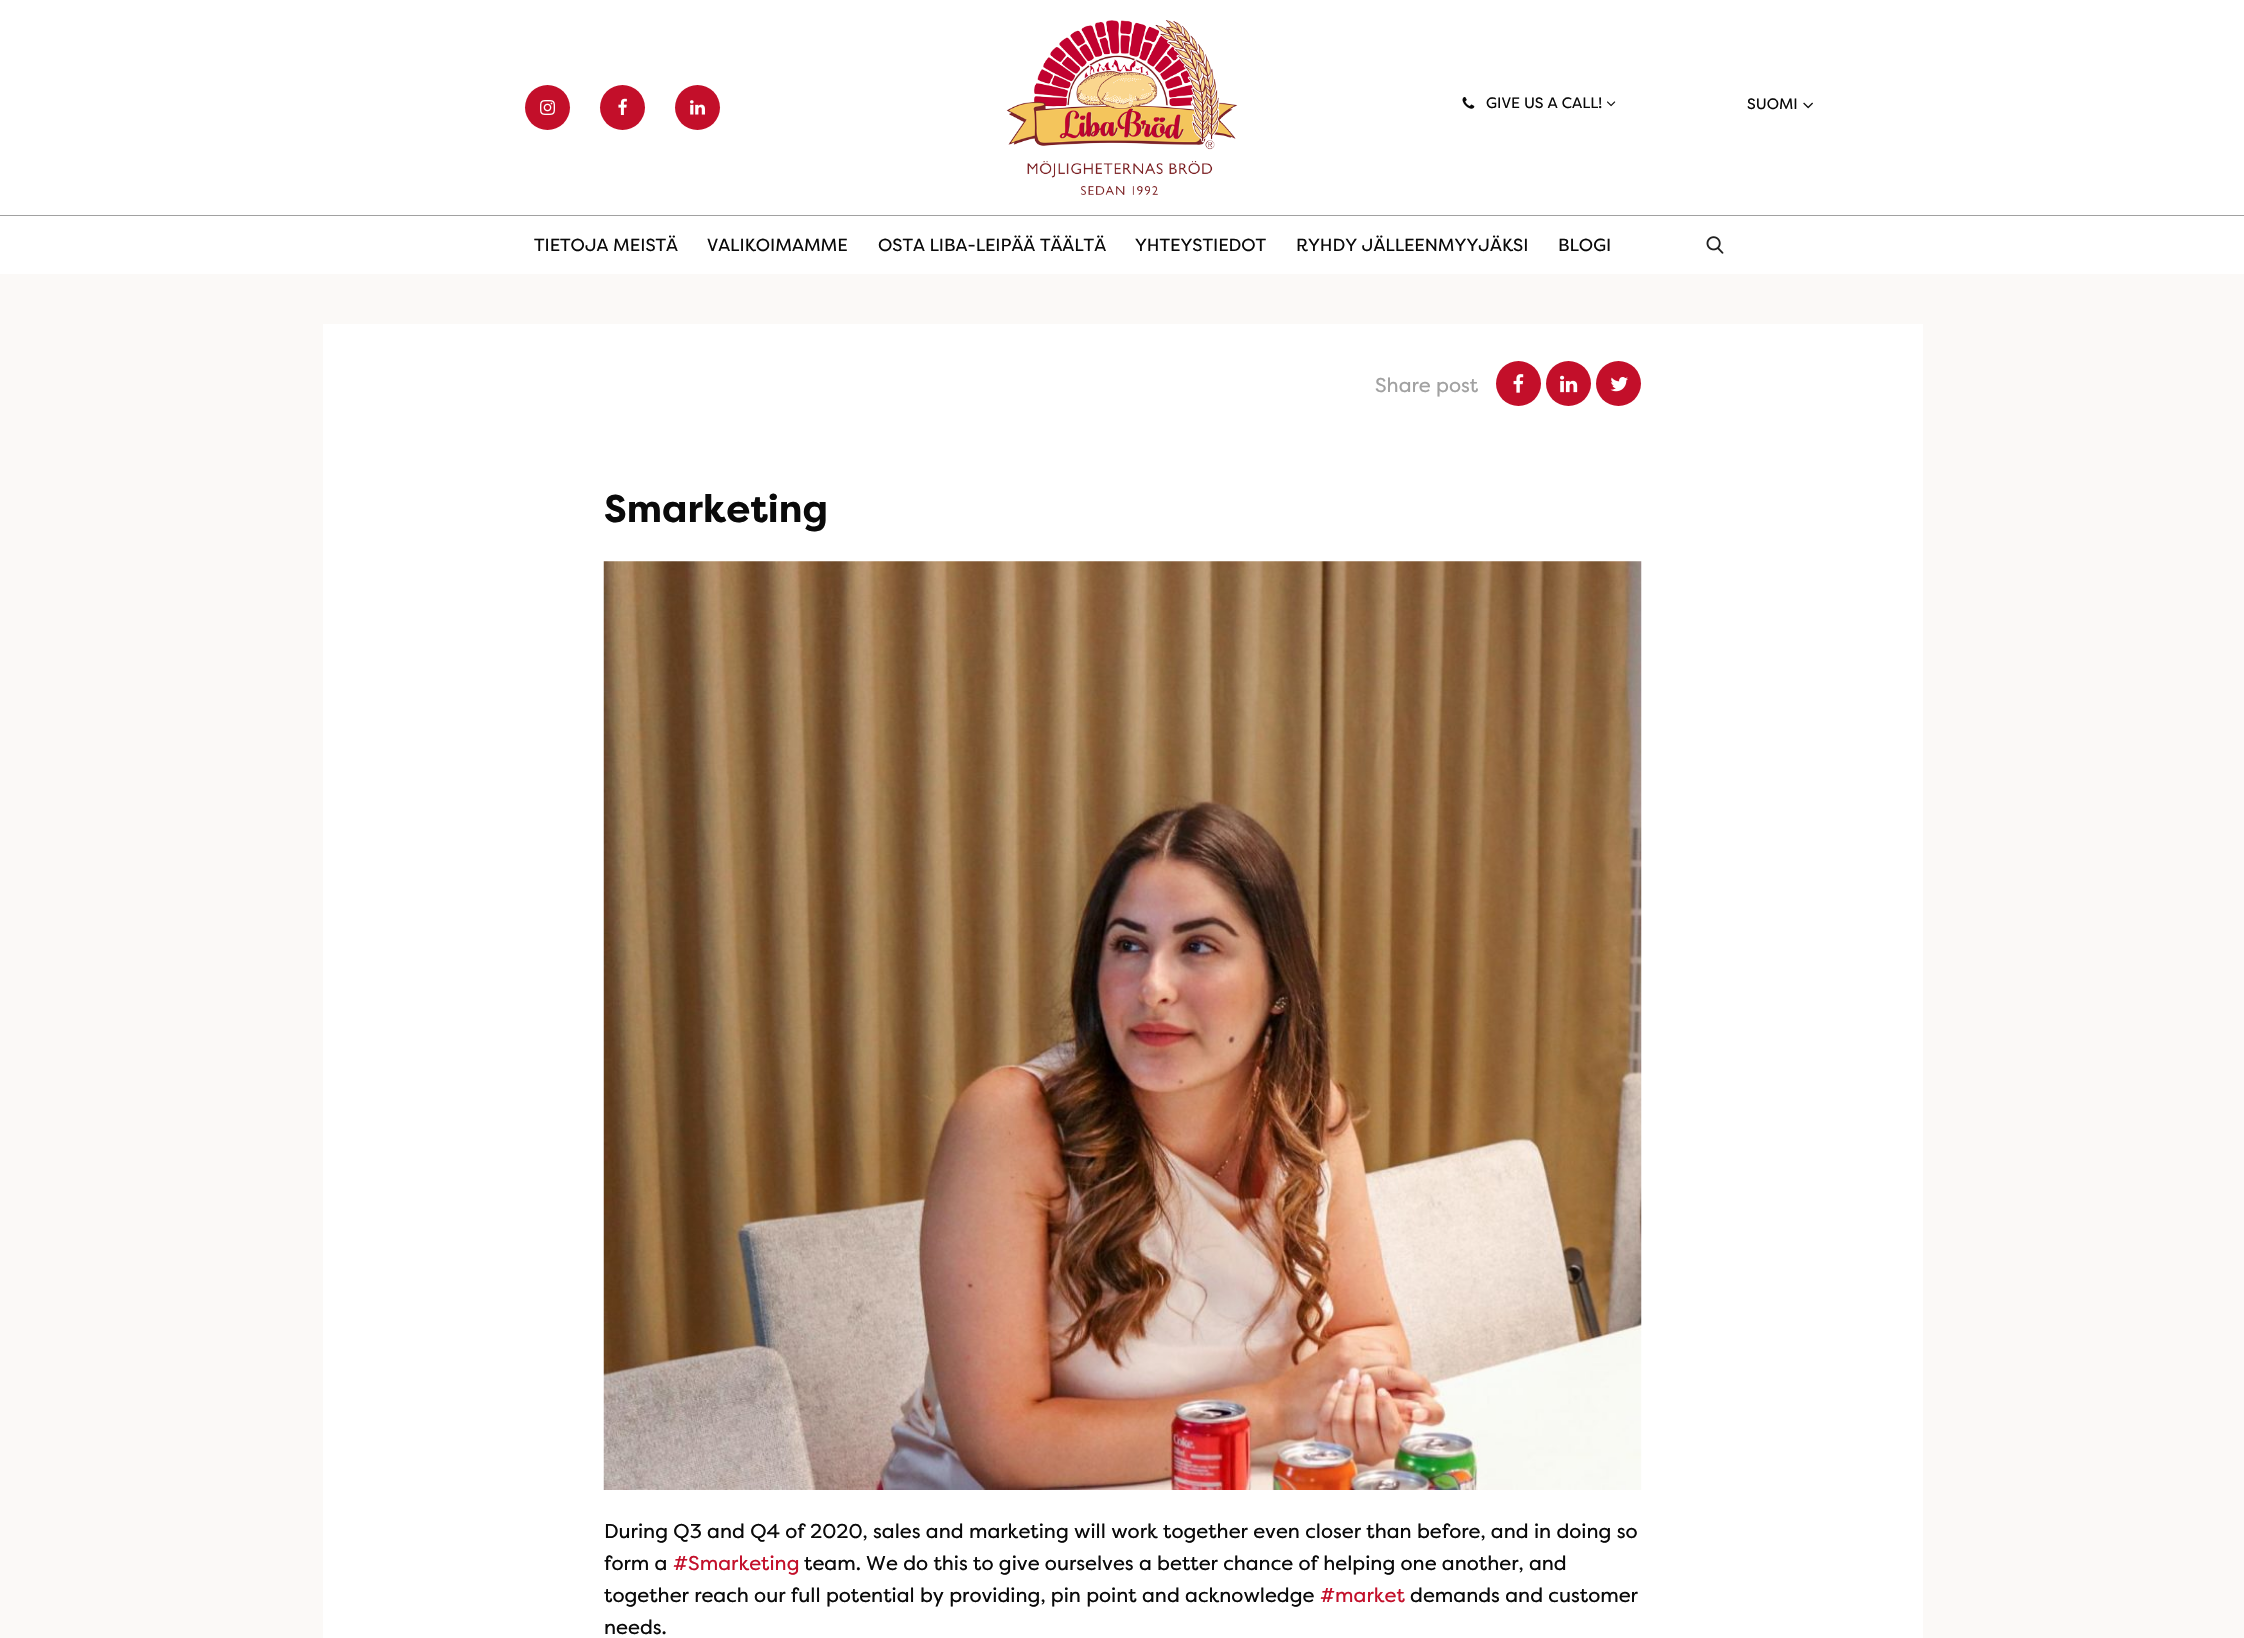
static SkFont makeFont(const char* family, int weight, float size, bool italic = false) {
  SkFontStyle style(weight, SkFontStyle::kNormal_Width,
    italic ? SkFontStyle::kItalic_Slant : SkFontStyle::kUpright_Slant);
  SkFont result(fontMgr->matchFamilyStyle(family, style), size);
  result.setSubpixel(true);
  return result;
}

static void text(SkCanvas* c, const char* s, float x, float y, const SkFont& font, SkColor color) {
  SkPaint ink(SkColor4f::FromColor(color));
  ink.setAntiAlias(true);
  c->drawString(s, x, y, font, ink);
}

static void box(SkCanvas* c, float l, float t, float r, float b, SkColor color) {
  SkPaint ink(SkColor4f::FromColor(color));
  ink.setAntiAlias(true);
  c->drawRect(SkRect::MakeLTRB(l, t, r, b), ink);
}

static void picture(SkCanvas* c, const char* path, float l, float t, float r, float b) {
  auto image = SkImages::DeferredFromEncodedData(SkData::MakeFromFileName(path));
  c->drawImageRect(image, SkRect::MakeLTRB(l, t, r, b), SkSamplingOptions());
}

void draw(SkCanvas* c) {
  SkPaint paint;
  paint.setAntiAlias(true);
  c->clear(0xffffffff);
  box(c, 0, 215, 2244, 216, 0xffa1a1a1);
  paint.setColor(0xffc30f2a);
  c->drawCircle(547.5f, 107.5f, 22.5f, paint);
  picture(c, "img_01.png", 540, 100, 555, 115);
  c->drawCircle(622.5f, 107.5f, 22.5f, paint);
  picture(c, "img_02.png", 618, 98, 627, 115);
  c->drawCircle(697.5f, 107.5f, 22.5f, paint);
  picture(c, "img_03.png", 690, 100, 705, 115);
  picture(c, "img_04.png", 1006, 20, 1238, 195);
  picture(c, "img_05.png", 1462, 97, 1475, 109);
  SkFont face1 = makeFont("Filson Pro", 400, 15);
  text(c, "GIVE US A CALL!", 1486, 108, face1, 0xff0a0a0a);
  picture(c, "img_06.png", 1607, 101, 1616, 107);
  text(c, "SUOMI", 1747, 109, face1, 0xff0a0a0a);
  picture(c, "img_07.png", 1803, 102, 1813, 109);
  SkFont face2 = makeFont("Filson Pro", 400, 17.5f);
  text(c, "TIETOJA MEISTÄ", 534, 251, face2, 0xff0a0a0a);
  text(c, "VALIKOIMAMME", 707, 251, face2, 0xff0a0a0a);
  text(c, "OSTA LIBA-LEIPÄÄ TÄÄLTÄ", 878, 251, face2, 0xff0a0a0a);
  text(c, "YHTEYSTIEDOT", 1135, 251, face2, 0xff0a0a0a);
  text(c, "RYHDY JÄLLEENMYYJÄKSI", 1296, 251, face2, 0xff0a0a0a);
  text(c, "BLOGI", 1558, 251, face2, 0xff0a0a0a);
  picture(c, "img_08.png", 1706, 236, 1724, 254);
  box(c, 0, 274, 2244, 1638, 0xfffbf9f7);
  box(c, 323, 324, 1923, 1638, 0xffffffff);
  SkFont face3 = makeFont("Filson Pro", 400, 20);
  text(c, "Share post", 1375, 392, face3, 0xffa1a1a1);
  c->drawCircle(1518.5f, 383.5f, 22.5f, paint);
  picture(c, "img_09.png", 1513, 374, 1524, 393);
  c->drawCircle(1568.5f, 383.5f, 22.5f, paint);
  picture(c, "img_10.png", 1560, 375, 1578, 393);
  c->drawCircle(1618.5f, 383.5f, 22.5f, paint);
  picture(c, "img_11.png", 1610, 377, 1628, 392);
  SkFont face4 = makeFont("Filson Pro", 700, 38.75f);
  text(c, "Smarketing", 604, 522, face4, 0xff0a0a0a);
  picture(c, "img_12.png", 603, 561, 1642, 1490);
  text(c, "During Q3 and Q4 of 2020, sales and marketing will work together even closer than before, and in doing so", 604, 1538, face3, 0xff0a0a0a);
  text(c, "form a", 604, 1570, face3, 0xff0a0a0a);
  text(c, "#Smarketing", 673, 1570, face3, 0xffc30f2a);
  text(c, "team. We do this to give ourselves a better chance of helping one another, and", 804, 1570, face3, 0xff0a0a0a);
  text(c, "together reach our full potential by providing, pin point and acknowledge", 604, 1602, face3, 0xff0a0a0a);
  text(c, "#market", 1320, 1602, face3, 0xffc30f2a);
  text(c, "demands and customer", 1410, 1602, face3, 0xff0a0a0a);
  text(c, "needs.", 604, 1634, face3, 0xff0a0a0a);
}
